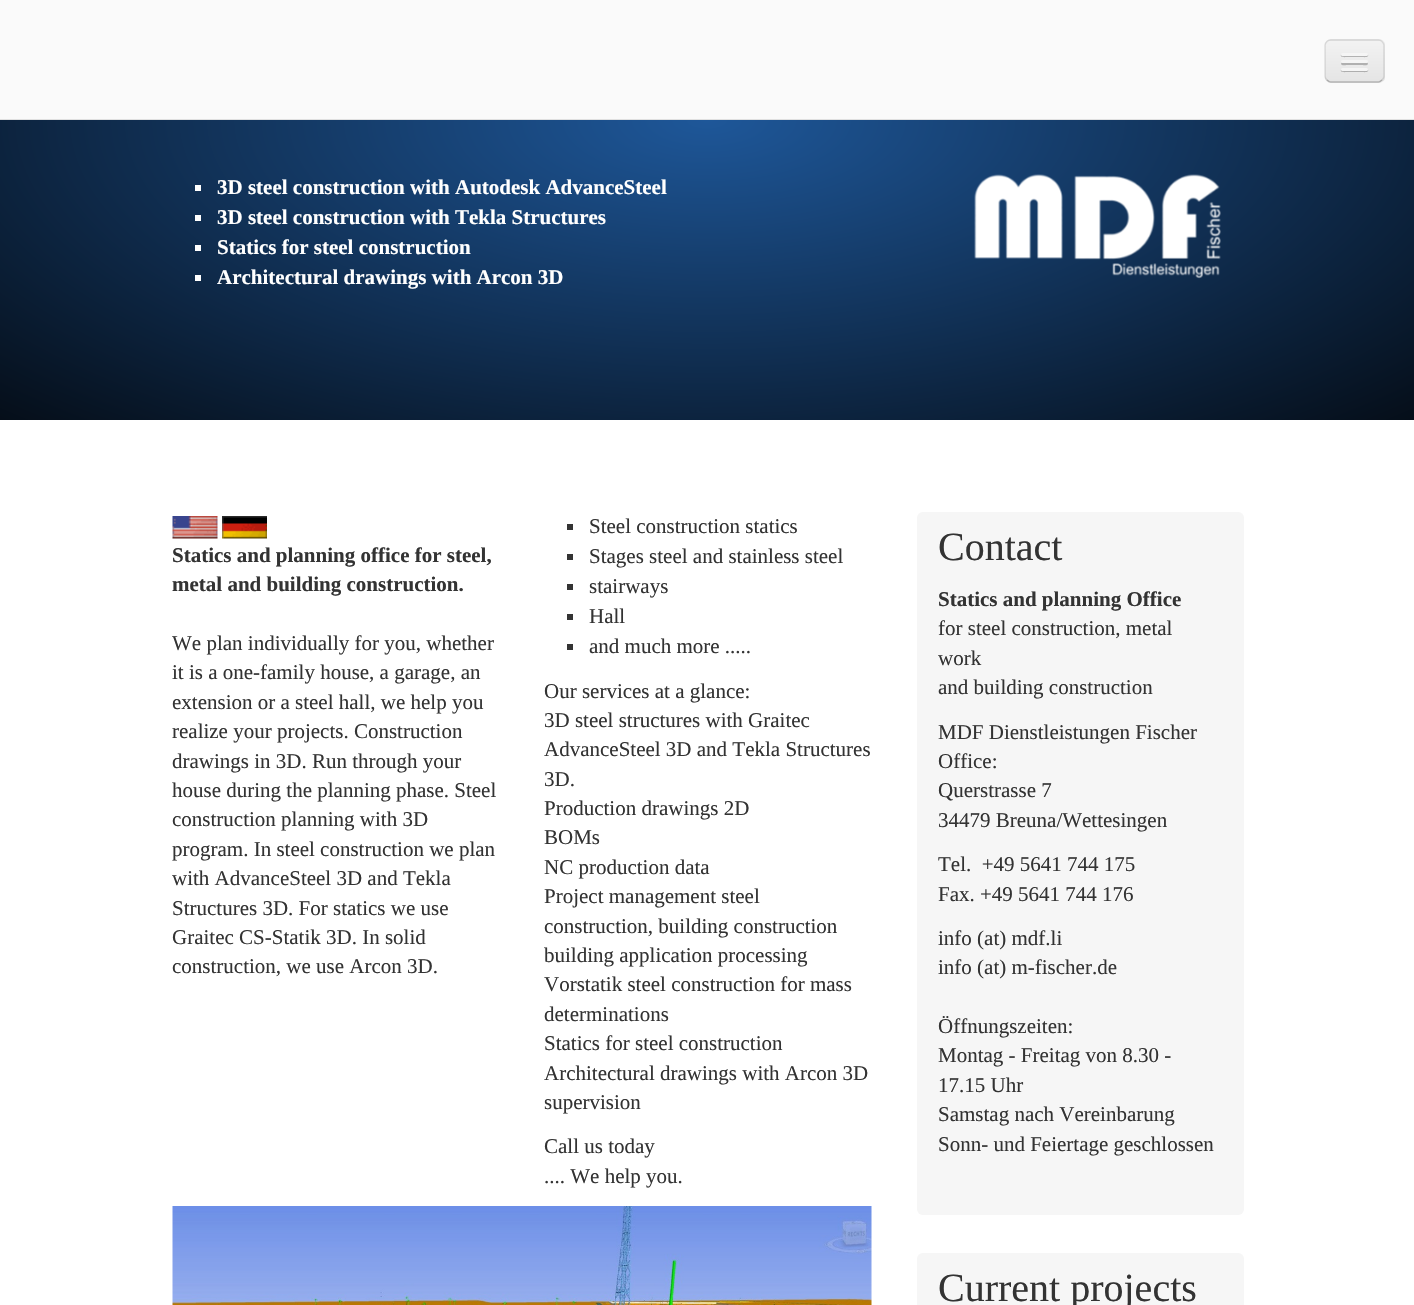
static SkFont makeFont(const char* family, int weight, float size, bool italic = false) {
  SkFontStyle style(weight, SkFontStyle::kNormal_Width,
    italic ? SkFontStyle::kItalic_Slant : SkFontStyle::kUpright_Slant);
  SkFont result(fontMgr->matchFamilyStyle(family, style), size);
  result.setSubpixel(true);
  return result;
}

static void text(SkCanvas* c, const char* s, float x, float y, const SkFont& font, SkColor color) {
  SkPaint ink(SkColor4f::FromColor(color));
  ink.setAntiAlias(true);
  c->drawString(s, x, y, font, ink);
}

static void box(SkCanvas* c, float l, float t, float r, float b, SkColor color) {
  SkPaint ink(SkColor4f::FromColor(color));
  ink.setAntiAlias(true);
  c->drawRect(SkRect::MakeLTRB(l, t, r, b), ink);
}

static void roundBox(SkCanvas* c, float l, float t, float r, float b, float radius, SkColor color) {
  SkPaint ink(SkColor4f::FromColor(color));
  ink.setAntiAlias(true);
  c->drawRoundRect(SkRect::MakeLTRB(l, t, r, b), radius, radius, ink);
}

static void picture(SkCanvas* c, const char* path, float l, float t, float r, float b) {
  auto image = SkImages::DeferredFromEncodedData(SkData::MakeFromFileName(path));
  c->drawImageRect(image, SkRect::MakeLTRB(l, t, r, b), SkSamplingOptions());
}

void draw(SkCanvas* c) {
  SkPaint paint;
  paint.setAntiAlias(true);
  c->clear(0xffffffff);
  box(c, 0, 0, 1414, 120, 0xfffafafa);
  box(c, 0, 119, 1414, 120, 0x1a000000);
  roundBox(c, 1325, 39, 1385, 83, 6, 0xffededed);
  c->save();
  c->clipPath(SkPathBuilder().moveTo(1331, 39).lineTo(1379, 39).cubicTo(1382.5f, 39, 1385, 41.5f, 1385, 45).lineTo(1385, 77).cubicTo(1385, 80.5f, 1382.5f, 83, 1379, 83).lineTo(1331, 83).cubicTo(1327.5f, 83, 1325, 80.5f, 1325, 77).lineTo(1325, 45).cubicTo(1325, 41.5f, 1327.5f, 39, 1331, 39).close().detach(), true);
  {
    const SkColor colors[] = {0xfff2f2f2, 0xffe5e5e5};
    const float stops[] = {0, 1};
    const SkPoint ends[] = {{1355, 41}, {1355, 81}};
    paint.setShader(SkGradientShader::MakeLinear(ends, colors, stops, 2, SkTileMode::kClamp));
    paint.setAlpha(255);
  }
  c->drawRect(SkRect::MakeLTRB(1325, 41, 1385, 81), paint);
  c->restore();
  paint.setStyle(SkPaint::kStroke_Style);
  paint.setStrokeWidth(1.5f);
  paint.setShader(nullptr);
  paint.setColor(0x40000000);
  c->drawPath(SkPathBuilder().moveTo(1382, 80).cubicTo(1381, 81, 1380, 82, 1378.5f, 82).lineTo(1330.5f, 82).cubicTo(1329, 82, 1328, 81, 1327, 80).detach(), paint);
  paint.setColor(0x1a000000);
  c->drawPath(SkPathBuilder().moveTo(1327, 80).cubicTo(1326, 79, 1325, 78, 1325, 76.5f).lineTo(1325, 45).cubicTo(1325, 43.5f, 1326, 42.5f, 1327, 41.5f).cubicTo(1328, 40.5f, 1329, 40, 1330.5f, 40).lineTo(1378.5f, 40).cubicTo(1380, 40, 1381, 40.5f, 1382, 41.5f).cubicTo(1383, 42.5f, 1384, 43.5f, 1384, 45).lineTo(1384, 76.5f).cubicTo(1384, 78, 1383, 79, 1382, 80).detach(), paint);
  paint.setStyle(SkPaint::kFill_Style);
  paint.setColor(0xffb2b2b2);
  c->drawPath(SkPathBuilder().moveTo(1341, 54.5f).cubicTo(1339.5f, 58, 1346.5f, 57, 1346.5f, 57).lineTo(1362.5f, 57).cubicTo(1362.5f, 57, 1369.5f, 58, 1368, 54.5f).cubicTo(1367.5f, 55, 1367, 55.5f, 1366.5f, 55.5f).lineTo(1342.5f, 55.5f).cubicTo(1342, 55.5f, 1341.5f, 55, 1341, 54.5f).close().detach(), paint);
  roundBox(c, 1341, 53, 1368, 56, 1.5f, 0xfff5f5f5);
  paint.setColor(0xffb0b0b0);
  c->drawPath(SkPathBuilder().moveTo(1341.5f, 62.5f).lineTo(1341, 64).cubicTo(1341.5f, 66, 1346, 65, 1346.5f, 65).lineTo(1362.5f, 65).cubicTo(1363, 65, 1367.5f, 66, 1368, 64).lineTo(1367.5f, 62.5f).lineTo(1366.5f, 63).lineTo(1342.5f, 63).close().detach(), paint);
  roundBox(c, 1341, 60, 1368, 63, 1.5f, 0xfff5f5f5);
  paint.setColor(0xffaeaeae);
  c->drawPath(SkPathBuilder().moveTo(1341, 69.5f).cubicTo(1339.5f, 73, 1346.5f, 72, 1346.5f, 72).lineTo(1362.5f, 72).cubicTo(1362.5f, 72, 1369.5f, 73, 1368, 69.5f).cubicTo(1367.5f, 70, 1367, 70.5f, 1366.5f, 70.5f).lineTo(1342.5f, 70.5f).cubicTo(1342, 70.5f, 1341.5f, 70, 1341, 69.5f).close().detach(), paint);
  roundBox(c, 1341, 68, 1368, 71, 1.5f, 0xfff5f5f5);
  {
    const SkColor colors[] = {0xff1e5799, 0xff050e19};
    const float stops[] = {0, 1};
    SkMatrix m = SkMatrix::Translate(707, 120).preScale(1000, 424);
    paint.setShader(SkGradientShader::MakeRadial({0, 0}, 1, colors, stops, 2, SkTileMode::kClamp, 0, &m));
    paint.setAlpha(255);
  }
  c->drawRect(SkRect::MakeLTRB(0, 120, 1414, 420), paint);
  box(c, 195, 185, 201, 191, 0xffffffff);
  SkFont face1 = makeFont("Liberation Serif", 700, 21);
  text(c, "3D steel construction with Autodesk AdvanceSteel", 217, 194, face1, 0xffffffff);
  box(c, 195, 215, 201, 221, 0xffffffff);
  text(c, "3D steel construction with Tekla Structures", 217, 224, face1, 0xffffffff);
  box(c, 195, 245, 201, 251, 0xffffffff);
  text(c, "Statics for steel construction", 217, 254, face1, 0xffffffff);
  box(c, 195, 275, 201, 281, 0xffffffff);
  text(c, "Architectural drawings with Arcon 3D", 217, 284, face1, 0xffffffff);
  picture(c, "img_01.png", 974, 174, 1221, 279);
  picture(c, "img_02.png", 172, 516, 218, 539);
  picture(c, "img_03.png", 222, 516, 267, 539);
  text(c, "Statics and planning office for steel,", 172, 562, face1, 0xff333333);
  text(c, "metal and building construction.", 172, 591, face1, 0xff333333);
  SkFont face2 = makeFont("Liberation Serif", 400, 21);
  text(c, "We plan individually for you, whether", 172, 650, face2, 0xff333333);
  text(c, "it is a one-family house, a garage, an", 172, 679, face2, 0xff333333);
  text(c, "extension or a steel hall, we help you", 172, 709, face2, 0xff333333);
  text(c, "realize your projects. Construction", 172, 738, face2, 0xff333333);
  text(c, "drawings in 3D. Run through your", 172, 768, face2, 0xff333333);
  text(c, "house during the planning phase. Steel", 172, 797, face2, 0xff333333);
  text(c, "construction planning with 3D", 172, 826, face2, 0xff333333);
  text(c, "program. In steel construction we plan", 172, 856, face2, 0xff333333);
  text(c, "with AdvanceSteel 3D and Tekla", 172, 885, face2, 0xff333333);
  text(c, "Structures 3D. For statics we use", 172, 915, face2, 0xff333333);
  text(c, "Graitec CS-Statik 3D. In solid", 172, 944, face2, 0xff333333);
  text(c, "construction, we use Arcon 3D.", 172, 973, face2, 0xff333333);
  box(c, 567, 524, 573, 530, 0xff333333);
  text(c, "Steel construction statics", 589, 533, face2, 0xff333333);
  box(c, 567, 554, 573, 560, 0xff333333);
  text(c, "Stages steel and stainless steel", 589, 563, face2, 0xff333333);
  box(c, 567, 584, 573, 590, 0xff333333);
  text(c, "stairways", 589, 593, face2, 0xff333333);
  box(c, 567, 614, 573, 620, 0xff333333);
  text(c, "Hall", 589, 623, face2, 0xff333333);
  box(c, 567, 644, 573, 650, 0xff333333);
  text(c, "and much more .....", 589, 653, face2, 0xff333333);
  text(c, "Our services at a glance:", 544, 698, face2, 0xff333333);
  text(c, "3D steel structures with Graitec", 544, 727, face2, 0xff333333);
  text(c, "AdvanceSteel 3D and Tekla Structures", 544, 756, face2, 0xff333333);
  text(c, "3D.", 544, 786, face2, 0xff333333);
  text(c, "Production drawings 2D", 544, 815, face2, 0xff333333);
  text(c, "BOMs", 544, 844, face2, 0xff333333);
  text(c, "NC production data", 544, 874, face2, 0xff333333);
  text(c, "Project management steel", 544, 903, face2, 0xff333333);
  text(c, "construction, building construction", 544, 933, face2, 0xff333333);
  text(c, "building application processing", 544, 962, face2, 0xff333333);
  text(c, "Vorstatik steel construction for mass", 544, 991, face2, 0xff333333);
  text(c, "determinations", 544, 1021, face2, 0xff333333);
  text(c, "Statics for steel construction", 544, 1050, face2, 0xff333333);
  text(c, "Architectural drawings with Arcon 3D", 544, 1080, face2, 0xff333333);
  text(c, "supervision", 544, 1109, face2, 0xff333333);
  text(c, "Call us today", 544, 1153, face2, 0xff333333);
  text(c, ".... We help you.", 544, 1183, face2, 0xff333333);
  picture(c, "img_04.png", 172, 1206, 872, 1305);
  roundBox(c, 917, 512, 1244, 1215, 6, 0xfff6f6f6);
  SkFont face3 = makeFont("Liberation Serif", 400, 40);
  text(c, "Contact", 938, 560, face3, 0xff333333);
  text(c, "Statics and planning Office", 938, 606, face1, 0xff333333);
  text(c, "for steel construction, metal", 938, 635, face2, 0xff333333);
  text(c, "work", 938, 665, face2, 0xff333333);
  text(c, "and building construction", 938, 694, face2, 0xff333333);
  text(c, "MDF Dienstleistungen Fischer", 938, 739, face2, 0xff333333);
  text(c, "Office:", 938, 768, face2, 0xff333333);
  text(c, "Querstrasse 7", 938, 797, face2, 0xff333333);
  text(c, "34479 Breuna/Wettesingen", 938, 827, face2, 0xff333333);
  text(c, "Tel.  +49 5641 744 175", 938, 871, face2, 0xff333333);
  text(c, "Fax. +49 5641 744 176", 938, 901, face2, 0xff333333);
  text(c, "info (at) mdf.li", 938, 945, face2, 0xff333333);
  text(c, "info (at) m-fischer.de", 938, 974, face2, 0xff333333);
  text(c, "Öffnungszeiten:", 938, 1033, face2, 0xff333333);
  text(c, "Montag - Freitag von 8.30 -", 938, 1062, face2, 0xff333333);
  text(c, "17.15 Uhr", 938, 1092, face2, 0xff333333);
  text(c, "Samstag nach Vereinbarung", 938, 1121, face2, 0xff333333);
  text(c, "Sonn- und Feiertage geschlossen", 938, 1151, face2, 0xff333333);
  roundBox(c, 917, 1253, 1244, 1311, 6, 0xfff6f6f6);
  text(c, "Current projects", 938, 1301, face3, 0xff333333);
}
